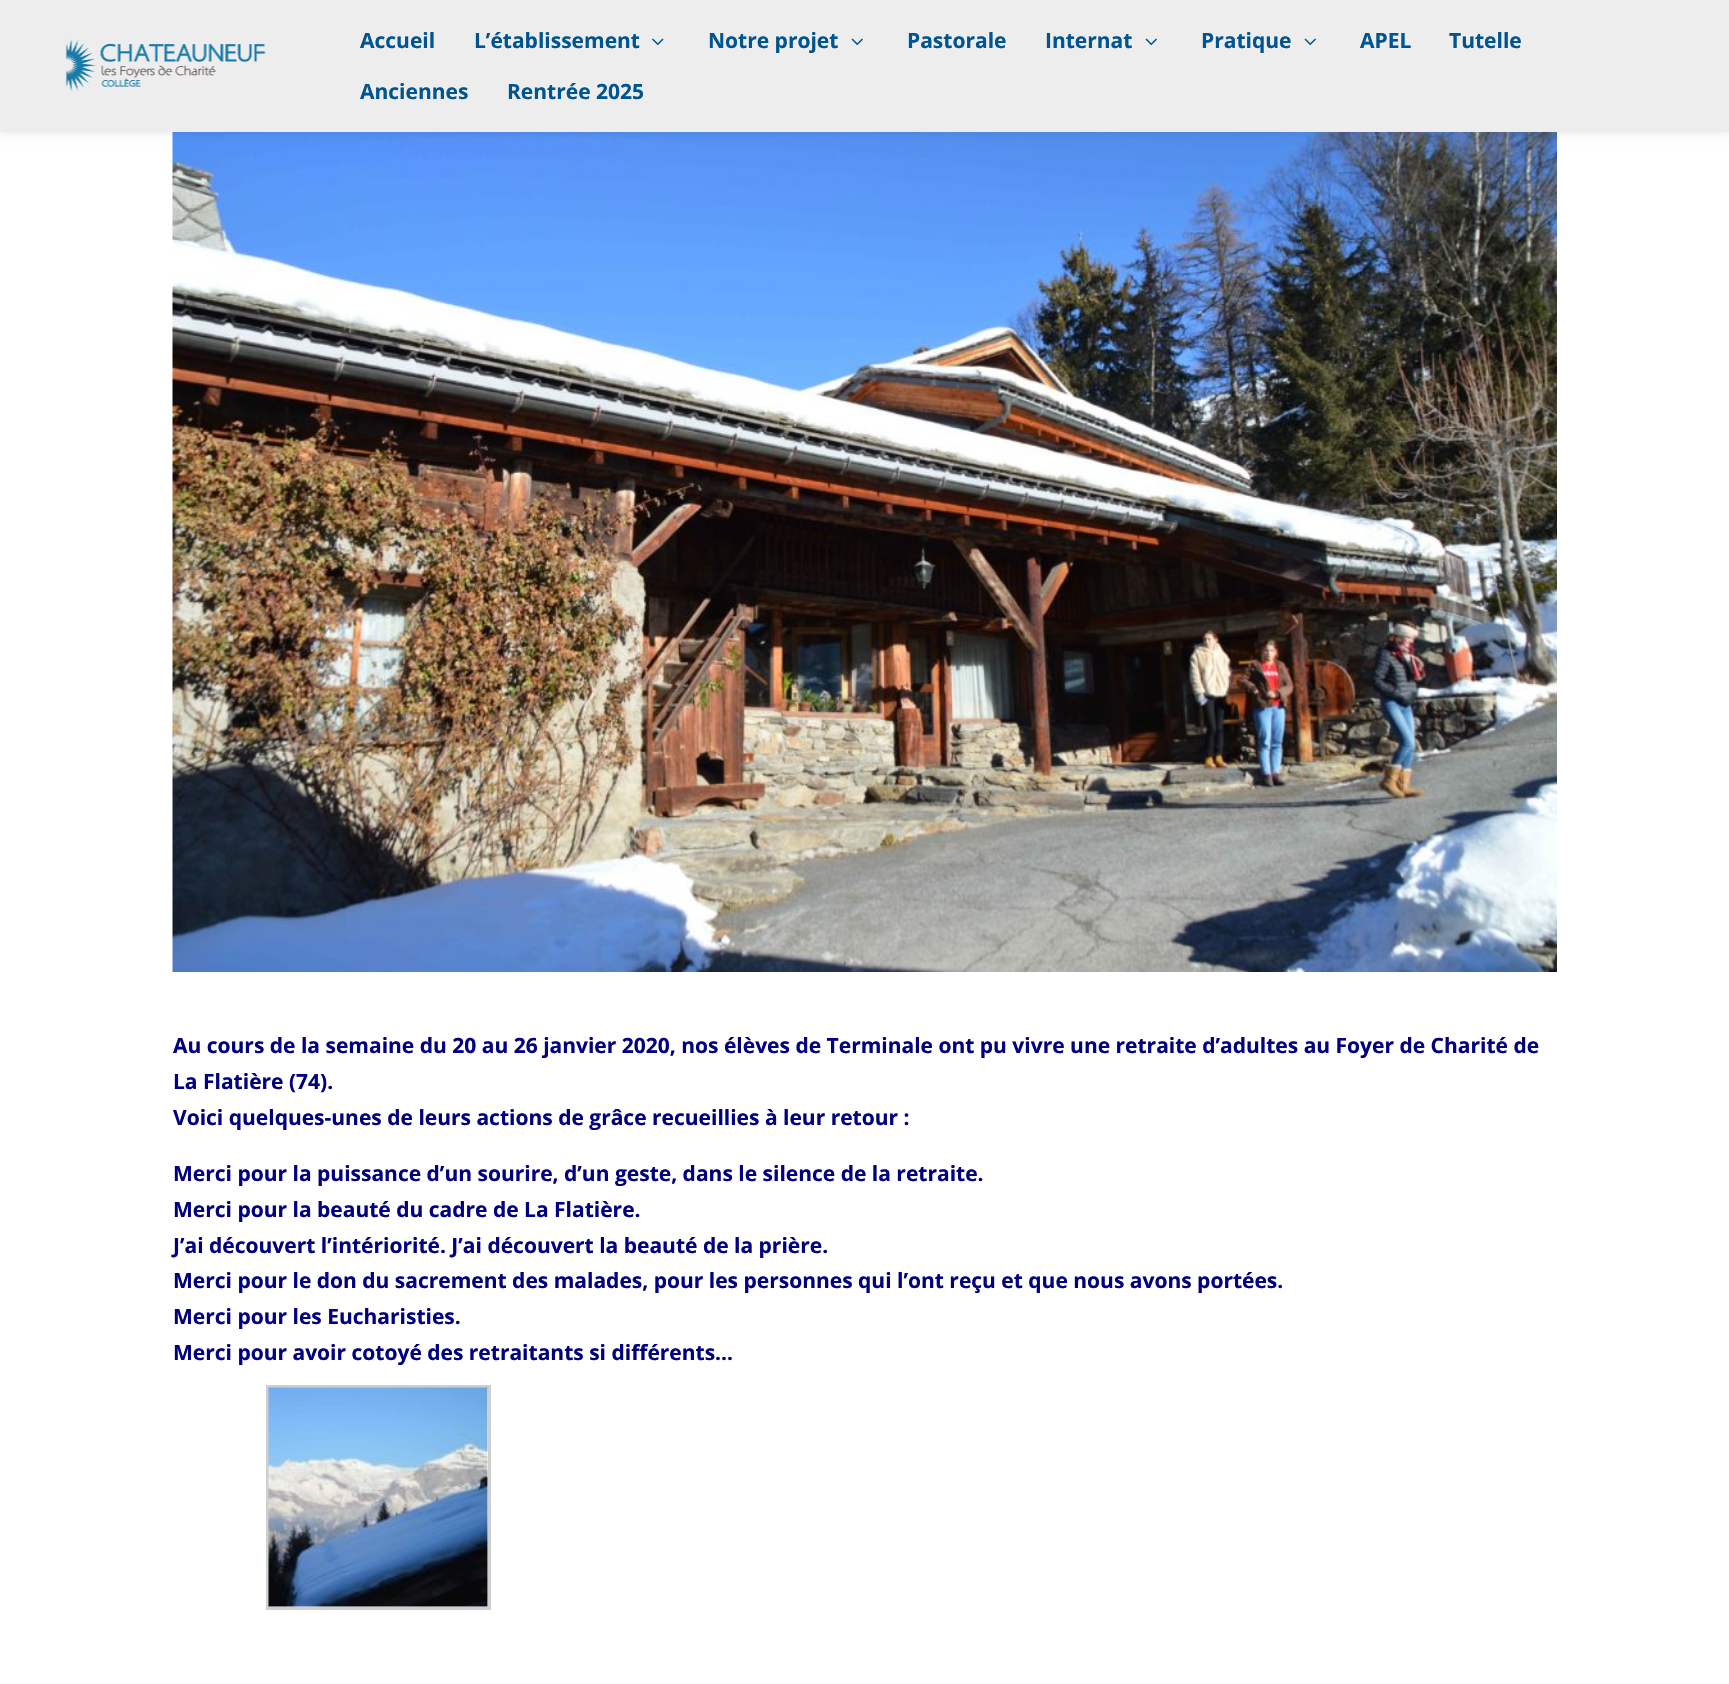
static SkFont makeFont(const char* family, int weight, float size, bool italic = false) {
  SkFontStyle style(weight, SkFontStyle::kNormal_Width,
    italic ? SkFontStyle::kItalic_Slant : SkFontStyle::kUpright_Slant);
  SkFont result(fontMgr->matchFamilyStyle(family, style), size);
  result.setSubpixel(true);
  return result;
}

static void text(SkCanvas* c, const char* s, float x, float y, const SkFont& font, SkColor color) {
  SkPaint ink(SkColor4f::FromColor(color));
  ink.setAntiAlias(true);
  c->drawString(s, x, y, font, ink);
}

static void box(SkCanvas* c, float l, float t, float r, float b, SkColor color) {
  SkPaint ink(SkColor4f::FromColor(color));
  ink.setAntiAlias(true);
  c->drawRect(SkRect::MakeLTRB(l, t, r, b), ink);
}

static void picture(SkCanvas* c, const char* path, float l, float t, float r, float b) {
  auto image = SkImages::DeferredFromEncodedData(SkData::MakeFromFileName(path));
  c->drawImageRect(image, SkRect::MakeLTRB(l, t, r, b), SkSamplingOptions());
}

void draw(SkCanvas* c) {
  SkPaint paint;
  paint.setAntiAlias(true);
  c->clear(0xffffffff);
  picture(c, "img_04.png", 172, 132, 1557, 972);
  paint.setColor(0x1a000000);
  paint.setMaskFilter(SkMaskFilter::MakeBlur(kNormal_SkBlurStyle, 5));
  c->drawRect(SkRect::MakeLTRB(0, 0, 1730, 132), paint);
  paint.setMaskFilter(nullptr);
  box(c, 0, 0, 1729, 132, 0xffededed);
  picture(c, "img_01.png", 65, 39, 266, 92);
  SkFont face1 = makeFont("Open Sans", 700, 21);
  text(c, "Accueil", 360, 48, face1, 0xff00548f);
  text(c, "L’établissement", 474, 48, face1, 0xff00548f);
  picture(c, "img_02.png", 652, 38, 664, 45);
  text(c, "Notre projet", 708, 48, face1, 0xff00548f);
  picture(c, "img_03.png", 851, 38, 863, 45);
  text(c, "Pastorale", 907, 48, face1, 0xff00548f);
  text(c, "Internat", 1045, 48, face1, 0xff00548f);
  picture(c, "img_03.png", 1145, 38, 1157, 45);
  text(c, "Pratique", 1201, 48, face1, 0xff00548f);
  picture(c, "img_03.png", 1304, 38, 1316, 45);
  text(c, "APEL", 1360, 48, face1, 0xff00548f);
  text(c, "Tutelle", 1449, 48, face1, 0xff00548f);
  text(c, "Anciennes", 360, 99, face1, 0xff00548f);
  text(c, "Rentrée 2025", 507, 99, face1, 0xff00548f);
  text(c, "Au cours de la semaine du 20 au 26 janvier 2020, nos élèves de Terminale ont pu vivre une retraite d’adultes au Foyer de Charité de", 173, 1053, face1, 0xff000080);
  text(c, "La Flatière (74).", 173, 1089, face1, 0xff000080);
  text(c, "Voici quelques-unes de leurs actions de grâce recueillies à leur retour :", 173, 1125, face1, 0xff000080);
  text(c, "Merci pour la puissance d’un sourire, d’un geste, dans le silence de la retraite.", 173, 1181, face1, 0xff000080);
  text(c, "Merci pour la beauté du cadre de La Flatière.", 173, 1217, face1, 0xff000080);
  text(c, "J’ai découvert l’intériorité. J’ai découvert la beauté de la prière.", 173, 1253, face1, 0xff000080);
  text(c, "Merci pour le don du sacrement des malades, pour les personnes qui l’ont reçu et que nous avons portées.", 173, 1288, face1, 0xff000080);
  text(c, "Merci pour les Eucharisties.", 173, 1324, face1, 0xff000080);
  text(c, "Merci pour avoir cotoyé des retraitants si différents…", 173, 1360, face1, 0xff000080);
  paint.setStyle(SkPaint::kStroke_Style);
  paint.setStrokeWidth(3);
  paint.setColor(0xffcfcfcf);
  c->drawRect(SkRect::MakeLTRB(267.5f, 1386.5f, 489.5f, 1608.5f), paint);
  picture(c, "img_05.png", 268, 1387, 488, 1607);
}
